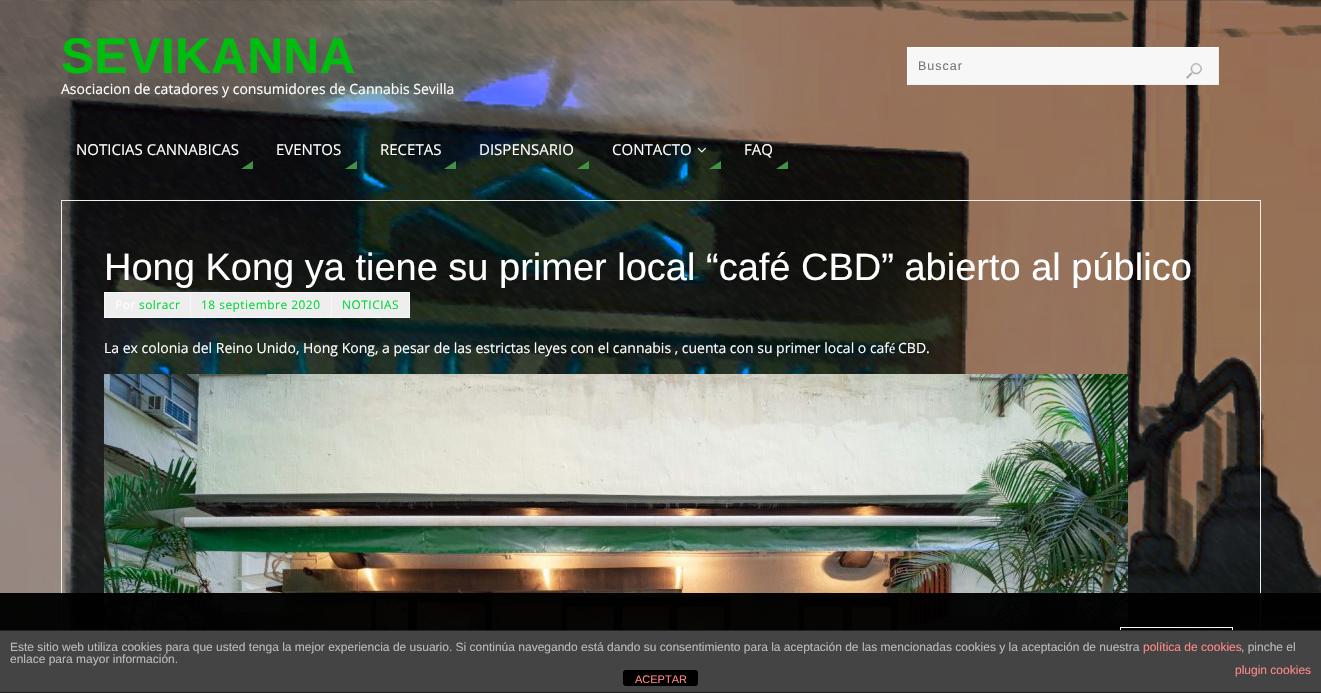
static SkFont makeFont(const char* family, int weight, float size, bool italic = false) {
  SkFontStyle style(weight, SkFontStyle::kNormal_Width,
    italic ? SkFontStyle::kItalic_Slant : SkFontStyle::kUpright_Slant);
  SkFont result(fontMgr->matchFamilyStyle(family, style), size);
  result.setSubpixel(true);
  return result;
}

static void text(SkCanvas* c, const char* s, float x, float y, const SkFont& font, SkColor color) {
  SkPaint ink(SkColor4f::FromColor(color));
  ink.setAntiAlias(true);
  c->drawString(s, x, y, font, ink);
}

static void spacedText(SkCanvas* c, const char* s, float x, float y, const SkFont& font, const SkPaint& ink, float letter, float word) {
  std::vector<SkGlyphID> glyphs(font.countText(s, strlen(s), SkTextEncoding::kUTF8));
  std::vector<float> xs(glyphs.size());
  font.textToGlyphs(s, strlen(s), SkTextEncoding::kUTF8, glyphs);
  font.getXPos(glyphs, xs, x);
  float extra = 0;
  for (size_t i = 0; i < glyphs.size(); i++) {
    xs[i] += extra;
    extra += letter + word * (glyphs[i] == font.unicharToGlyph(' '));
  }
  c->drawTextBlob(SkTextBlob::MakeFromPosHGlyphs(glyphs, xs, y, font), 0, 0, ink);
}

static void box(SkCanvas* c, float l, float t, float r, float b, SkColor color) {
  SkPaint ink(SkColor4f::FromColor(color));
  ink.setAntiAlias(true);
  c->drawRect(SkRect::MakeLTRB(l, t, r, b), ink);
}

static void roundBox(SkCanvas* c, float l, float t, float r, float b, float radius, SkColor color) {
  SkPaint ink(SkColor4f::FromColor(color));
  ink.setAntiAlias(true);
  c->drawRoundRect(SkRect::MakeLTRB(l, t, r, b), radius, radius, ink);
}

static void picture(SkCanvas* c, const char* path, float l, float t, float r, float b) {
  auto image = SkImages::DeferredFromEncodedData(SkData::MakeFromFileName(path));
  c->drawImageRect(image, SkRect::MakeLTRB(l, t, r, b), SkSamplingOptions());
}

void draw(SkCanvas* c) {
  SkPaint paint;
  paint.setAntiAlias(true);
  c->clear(0xffffffff);
  picture(c, "img_01.png", 0, 0, 1321, 630);
  SkFont face1 = makeFont("Liberation Sans", 700, 50);
  text(c, "SEVIKANNA", 61, 73, face1, 0xff00be0f);
  SkFont face2 = makeFont("Open Sans", 400, 14);
  text(c, "Asociacion de catadores y consumidores de Cannabis Sevilla", 61, 94, face2, 0xffffffff);
  box(c, 908, 48, 1218, 84, 0xfff7f7f7);
  box(c, 907, 47, 1219, 48, 0xffffffff);
  box(c, 1218, 47, 1219, 85, 0xffeeeeee);
  box(c, 907, 84, 1219, 85, 0xffeeeeee);
  box(c, 907, 47, 908, 85, 0xffffffff);
  SkFont face3 = makeFont("Liberation Sans", 400, 12.5f);
  paint.setColor(0xff757575);
  spacedText(c, "Buscar", 918, 70, face3, paint, 1, 0);
  picture(c, "img_02.png", 1186, 63, 1202, 79);
  SkFont face4 = makeFont("Open Sans", 400, 15);
  text(c, "NOTICIAS CANNABICAS", 76, 155, face4, 0xffffffff);
  paint.setColor(0xff409244);
  c->drawPath(SkPathBuilder().moveTo(253, 169).lineTo(241, 169).lineTo(253, 161).close().detach(), paint);
  text(c, "EVENTOS", 276, 155, face4, 0xffffffff);
  c->drawPath(SkPathBuilder().moveTo(357, 169).lineTo(345, 169).lineTo(357, 161).close().detach(), paint);
  text(c, "RECETAS", 380, 155, face4, 0xffffffff);
  c->drawPath(SkPathBuilder().moveTo(456, 169).lineTo(444, 169).lineTo(456, 161).close().detach(), paint);
  text(c, "DISPENSARIO", 479, 155, face4, 0xffffffff);
  c->drawPath(SkPathBuilder().moveTo(589, 169).lineTo(577, 169).lineTo(589, 161).close().detach(), paint);
  text(c, "CONTACTO", 612, 155, face4, 0xffffffff);
  picture(c, "img_03.png", 697, 147, 706, 153);
  c->drawPath(SkPathBuilder().moveTo(721, 169).lineTo(709, 169).lineTo(721, 161).close().detach(), paint);
  text(c, "FAQ", 744, 155, face4, 0xffffffff);
  c->drawPath(SkPathBuilder().moveTo(788, 169).lineTo(776, 169).lineTo(788, 161).close().detach(), paint);
  paint.setStyle(SkPaint::kStroke_Style);
  paint.setStrokeWidth(1);
  paint.setColor(0xffeeeeee);
  c->drawRect(SkRect::MakeLTRB(61.5f, 200.5f, 1260.5f, 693.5f), paint);
  SkFont face5 = makeFont("Liberation Sans", 400, 38);
  text(c, "Hong Kong ya tiene su primer local “café CBD” abierto al público", 104, 280, face5, 0xffffffff);
  paint.setStyle(SkPaint::kFill_Style);
  c->drawRect(SkRect::MakeLTRB(104.5f, 292.5f, 190.5f, 317.5f), paint);
  paint.setStyle(SkPaint::kStroke_Style);
  paint.setColor(0xfff7f7f7);
  c->drawRect(SkRect::MakeLTRB(104.5f, 292.5f, 190.5f, 317.5f), paint);
  SkFont face6 = makeFont("Open Sans", 400, 11.9f);
  paint.setStyle(SkPaint::kFill_Style);
  paint.setColor(0xffffffff);
  spacedText(c, "Por", 115, 309, face6, paint, 0.5f, 0);
  paint.setColor(0xff00d737);
  spacedText(c, "solracr", 139, 309, face6, paint, 0.5f, 0);
  paint.setColor(0xffeeeeee);
  c->drawRect(SkRect::MakeLTRB(190.5f, 292.5f, 331.5f, 317.5f), paint);
  paint.setStyle(SkPaint::kStroke_Style);
  paint.setColor(0xfff7f7f7);
  c->drawRect(SkRect::MakeLTRB(190.5f, 292.5f, 331.5f, 317.5f), paint);
  paint.setStyle(SkPaint::kFill_Style);
  paint.setColor(0xff00d737);
  spacedText(c, "18 septiembre 2020", 201, 309, face6, paint, 0.5f, 0);
  paint.setColor(0xffeeeeee);
  c->drawRect(SkRect::MakeLTRB(331.5f, 292.5f, 409.5f, 317.5f), paint);
  paint.setStyle(SkPaint::kStroke_Style);
  paint.setColor(0xfff7f7f7);
  c->drawRect(SkRect::MakeLTRB(331.5f, 292.5f, 409.5f, 317.5f), paint);
  paint.setStyle(SkPaint::kFill_Style);
  paint.setColor(0xff00d737);
  spacedText(c, "NOTICIAS", 342, 309, face6, paint, 0.5f, 0);
  text(c, "La ex colonia del Reino Unido, Hong Kong, a pesar de las estrictas leyes con el cannabis , cuenta con su primer local o caf", 104, 353, face2, 0xffffffff);
  SkFont face7 = makeFont("Liberation Serif", 400, 14);
  text(c, "é", 889, 353, face7, 0xffffffff);
  text(c, "CBD.", 898, 353, face2, 0xffffffff);
  picture(c, "img_04.png", 104, 374, 1128, 630);
  c->save();
  c->clipPath(SkPathBuilder(SkPathFillType::kEvenOdd).moveTo(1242, 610).lineTo(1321, 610).lineTo(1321, 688).lineTo(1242, 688).close().moveTo(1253, 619).lineTo(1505, 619).cubicTo(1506, 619, 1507, 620, 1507, 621).lineTo(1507, 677).cubicTo(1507, 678, 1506, 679, 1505, 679).lineTo(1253, 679).cubicTo(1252, 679, 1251, 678, 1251, 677).lineTo(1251, 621).cubicTo(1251, 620, 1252, 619, 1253, 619).close().detach(), true);
  paint.setColor(0xff808080);
  paint.setMaskFilter(SkMaskFilter::MakeBlur(kNormal_SkBlurStyle, 2.5f));
  c->drawRoundRect(SkRect::MakeLTRB(1251, 619, 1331, 679), 2, 2, paint);
  paint.setMaskFilter(nullptr);
  c->restore();
  box(c, 0, 593, 1321, 630, 0xf7000000);
  paint.setStyle(SkPaint::kStroke_Style);
  paint.setColor(0xf7ffffff);
  c->drawRect(SkRect::MakeLTRB(1120.5f, 627.5f, 1232.5f, 659.5f), paint);
  box(c, 0, 631, 1321, 692, 0xff444444);
  box(c, 0, 630, 1321, 631, 0xff222222);
  box(c, 0, 692, 1321, 693, 0xff222222);
  SkFont face8 = makeFont("Liberation Sans", 400, 12);
  text(c, "Este sitio web utiliza cookies para que usted tenga la mejor experiencia de usuario. Si continúa navegando está dando su consentimiento para la aceptación de las mencionadas cookies y la aceptación de nuestra", 10, 651, face8, 0xffbbbbbb);
  text(c, "política de cookies", 1143, 651, face8, 0xffff8888);
  text(c, ", pinche el", 1241, 651, face8, 0xffbbbbbb);
  text(c, "enlace para mayor información.", 10, 663, face8, 0xffbbbbbb);
  text(c, "plugin cookies", 1235, 674, face8, 0xffff8888);
  roundBox(c, 623, 670, 698, 686, 3, 0xff000000);
  SkFont face9 = makeFont("Liberation Sans", 400, 11);
  text(c, "ACEPTAR", 635, 683, face9, 0xffff8888);
}
